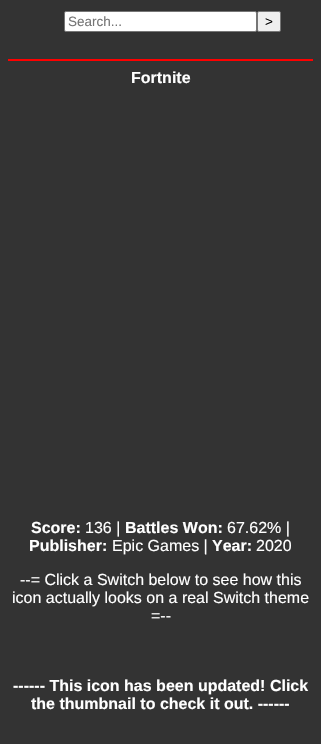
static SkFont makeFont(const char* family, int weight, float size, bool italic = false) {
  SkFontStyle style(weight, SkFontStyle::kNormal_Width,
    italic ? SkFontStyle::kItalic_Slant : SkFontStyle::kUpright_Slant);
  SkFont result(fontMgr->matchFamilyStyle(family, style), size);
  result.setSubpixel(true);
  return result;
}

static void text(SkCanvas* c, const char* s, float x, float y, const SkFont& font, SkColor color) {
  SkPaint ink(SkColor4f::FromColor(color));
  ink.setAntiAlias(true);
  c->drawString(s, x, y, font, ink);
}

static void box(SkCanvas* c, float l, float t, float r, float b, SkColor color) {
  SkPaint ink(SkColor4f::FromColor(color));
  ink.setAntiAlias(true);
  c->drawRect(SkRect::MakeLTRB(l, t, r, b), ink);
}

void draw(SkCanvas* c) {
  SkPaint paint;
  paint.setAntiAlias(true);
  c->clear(0xff333333);
  paint.setColor(0xffffffff);
  c->drawRoundRect(SkRect::MakeLTRB(64.5f, 11.5f, 256.5f, 31.5f), 1.5f, 1.5f, paint);
  paint.setStyle(SkPaint::kStroke_Style);
  paint.setStrokeWidth(1);
  paint.setColor(0xff767676);
  c->drawRoundRect(SkRect::MakeLTRB(64.5f, 11.5f, 256.5f, 31.5f), 1.5f, 1.5f, paint);
  SkFont face1 = makeFont("Liberation Sans", 400, 13.5f);
  text(c, "Search...", 68, 26, face1, 0xff757575);
  paint.setStyle(SkPaint::kFill_Style);
  paint.setColor(0xffefefef);
  c->drawRoundRect(SkRect::MakeLTRB(257.5f, 11.5f, 280.5f, 31.5f), 1.5f, 1.5f, paint);
  paint.setStyle(SkPaint::kStroke_Style);
  paint.setColor(0xff767676);
  c->drawRoundRect(SkRect::MakeLTRB(257.5f, 11.5f, 280.5f, 31.5f), 1.5f, 1.5f, paint);
  text(c, ">", 265, 26, face1, 0xff000000);
  box(c, 8, 59, 313, 61, 0xffff0000);
  SkFont face2 = makeFont("Liberation Sans", 700, 16);
  text(c, "Fortnite", 131, 83, face2, 0xffffffff);
  text(c, "Score:", 31, 533, face2, 0xffffffff);
  SkFont face3 = makeFont("Liberation Sans", 400, 16);
  text(c, "136 |", 85, 533, face3, 0xffffffff);
  text(c, "Battles Won:", 125, 533, face2, 0xffffffff);
  text(c, "67.62% |", 227, 533, face3, 0xffffffff);
  text(c, "Publisher:", 29, 551, face2, 0xffffffff);
  text(c, "Epic Games |", 112, 551, face3, 0xffffffff);
  text(c, "Year:", 212, 551, face2, 0xffffffff);
  text(c, "2020", 256, 551, face3, 0xffffffff);
  text(c, "--= Click a Switch below to see how this", 20, 585, face3, 0xffffffff);
  text(c, "icon actually looks on a real Switch theme", 12, 603, face3, 0xffffffff);
  text(c, "=--", 151, 621, face3, 0xffffffff);
  text(c, "------ This icon has been updated! Click", 13, 691, face2, 0xffffffff);
  text(c, "the thumbnail to check it out. ------", 31, 709, face2, 0xffffffff);
}
